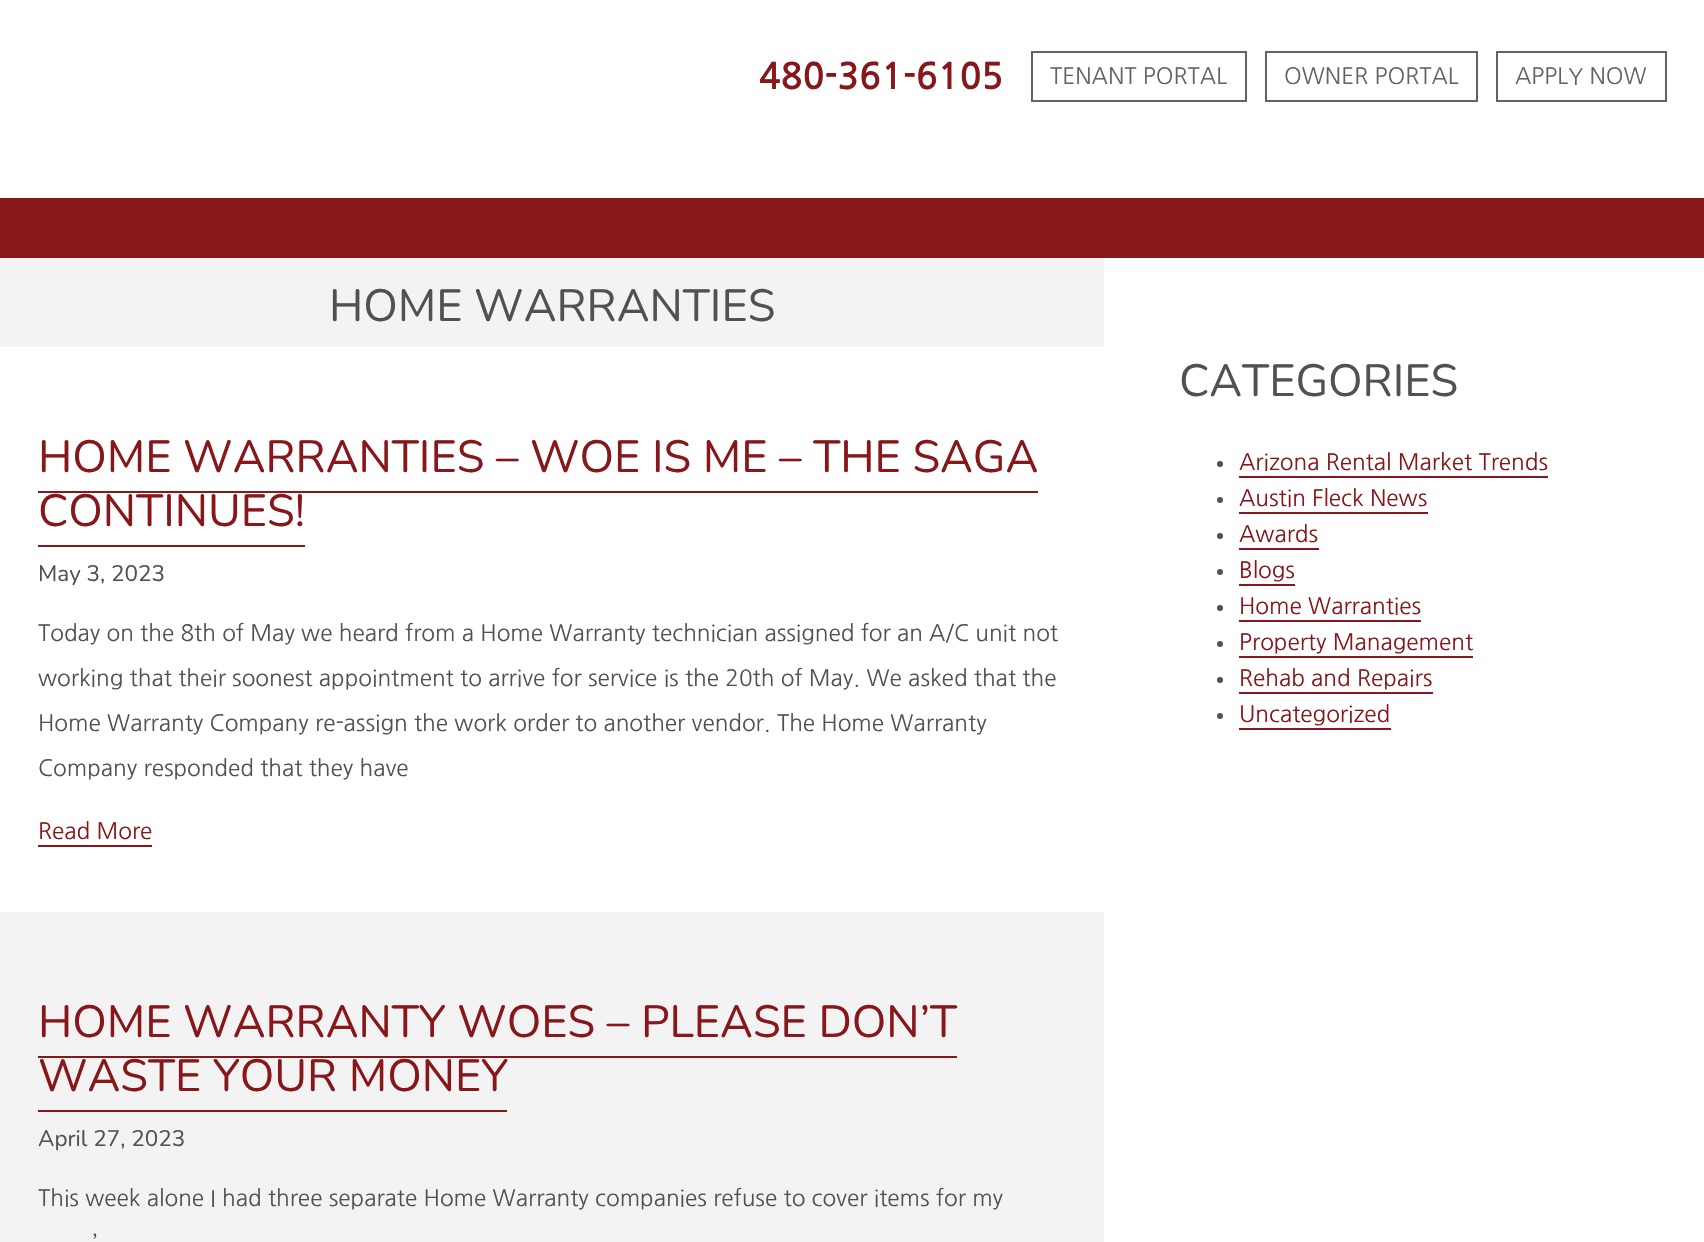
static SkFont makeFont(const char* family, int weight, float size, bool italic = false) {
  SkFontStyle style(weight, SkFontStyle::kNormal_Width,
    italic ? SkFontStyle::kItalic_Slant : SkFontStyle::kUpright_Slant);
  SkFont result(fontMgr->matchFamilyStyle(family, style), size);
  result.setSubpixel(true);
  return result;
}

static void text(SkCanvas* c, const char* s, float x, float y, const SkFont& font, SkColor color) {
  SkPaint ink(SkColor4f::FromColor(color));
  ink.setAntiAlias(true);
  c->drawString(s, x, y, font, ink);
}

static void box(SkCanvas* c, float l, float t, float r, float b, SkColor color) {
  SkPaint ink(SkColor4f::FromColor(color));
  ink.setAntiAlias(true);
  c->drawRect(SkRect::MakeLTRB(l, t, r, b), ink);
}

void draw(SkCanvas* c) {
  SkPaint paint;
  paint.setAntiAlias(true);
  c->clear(0xffffffff);
  SkFont face1 = makeFont("NanumGothic", 700, 36);
  text(c, "480-361-6105", 759, 89, face1, 0xff87171a);
  paint.setStyle(SkPaint::kStroke_Style);
  paint.setStrokeWidth(2);
  paint.setColor(0xff636363);
  c->drawRect(SkRect::MakeLTRB(1032, 52, 1246, 101), paint);
  SkFont face2 = makeFont("NanumGothic", 400, 22.5f);
  text(c, "TENANT PORTAL", 1050, 84, face2, 0xff636363);
  c->drawRect(SkRect::MakeLTRB(1266, 52, 1477, 101), paint);
  text(c, "OWNER PORTAL", 1284, 84, face2, 0xff636363);
  c->drawRect(SkRect::MakeLTRB(1497, 52, 1666, 101), paint);
  text(c, "APPLY NOW", 1515, 84, face2, 0xff636363);
  box(c, 0, 198, 1704, 258, 0xff87171a);
  box(c, 0, 258, 1104, 1242, 0xfff3f3f3);
  SkFont face3 = makeFont("Nunito", 400, 45);
  text(c, "HOME WARRANTIES", 329, 321, face3, 0xff515151);
  box(c, 0, 347, 1104, 912, 0xffffffff);
  text(c, "HOME WARRANTIES – WOE IS ME – THE SAGA", 38, 472, face3, 0xff87171a);
  text(c, "CONTINUES!", 38, 526, face3, 0xff87171a);
  box(c, 38, 491, 1038, 493, 0xff87171a);
  box(c, 38, 545, 305, 547, 0xff87171a);
  SkFont face4 = makeFont("Nunito", 400, 22.5f);
  text(c, "May 3, 2023", 38, 581, face4, 0xff515151);
  text(c, "Today on the 8th of May we heard from a Home Warranty technician assigned for an A/C unit not", 38, 641, face2, 0xff515151);
  text(c, "working that their soonest appointment to arrive for service is the 20th of May. We asked that the", 38, 686, face2, 0xff515151);
  text(c, "Home Warranty Company re-assign the work order to another vendor. The Home Warranty", 38, 731, face2, 0xff515151);
  text(c, "Company responded that they have", 38, 776, face2, 0xff515151);
  text(c, "Read More", 38, 839, face2, 0xff87171a);
  box(c, 38, 845, 152, 847, 0xff87171a);
  text(c, "HOME WARRANTY WOES – PLEASE DON’T", 38, 1037, face3, 0xff87171a);
  text(c, "WASTE YOUR MONEY", 38, 1091, face3, 0xff87171a);
  box(c, 38, 1056, 957, 1058, 0xff87171a);
  box(c, 38, 1110, 507, 1112, 0xff87171a);
  text(c, "April 27, 2023", 38, 1146, face4, 0xff515151);
  text(c, "This week alone I had three separate Home Warranty companies refuse to cover items for my", 38, 1206, face2, 0xff515151);
  text(c, "’", 93, 1251, face2, 0xff515151);
  text(c, "CATEGORIES", 1179, 396, face3, 0xff515151);
  paint.setStyle(SkPaint::kFill_Style);
  paint.setColor(0xff515151);
  c->drawCircle(1220, 464, 3, paint);
  text(c, "Arizona Rental Market Trends", 1239, 470, face2, 0xff87171a);
  box(c, 1239, 476, 1548, 478, 0xff87171a);
  c->drawCircle(1220, 500, 3, paint);
  text(c, "Austin Fleck News", 1239, 506, face2, 0xff87171a);
  box(c, 1239, 512, 1428, 514, 0xff87171a);
  c->drawCircle(1220, 536, 3, paint);
  text(c, "Awards", 1239, 542, face2, 0xff87171a);
  box(c, 1239, 548, 1319, 550, 0xff87171a);
  c->drawCircle(1220, 572, 3, paint);
  text(c, "Blogs", 1239, 578, face2, 0xff87171a);
  box(c, 1239, 584, 1295, 586, 0xff87171a);
  c->drawCircle(1220, 608, 3, paint);
  text(c, "Home Warranties", 1239, 614, face2, 0xff87171a);
  box(c, 1239, 620, 1421, 622, 0xff87171a);
  c->drawCircle(1220, 644, 3, paint);
  text(c, "Property Management", 1239, 650, face2, 0xff87171a);
  box(c, 1239, 656, 1473, 658, 0xff87171a);
  c->drawCircle(1220, 680, 3, paint);
  text(c, "Rehab and Repairs", 1239, 686, face2, 0xff87171a);
  box(c, 1239, 692, 1433, 694, 0xff87171a);
  c->drawCircle(1220, 716, 3, paint);
  text(c, "Uncategorized", 1239, 722, face2, 0xff87171a);
  box(c, 1239, 728, 1391, 730, 0xff87171a);
}
